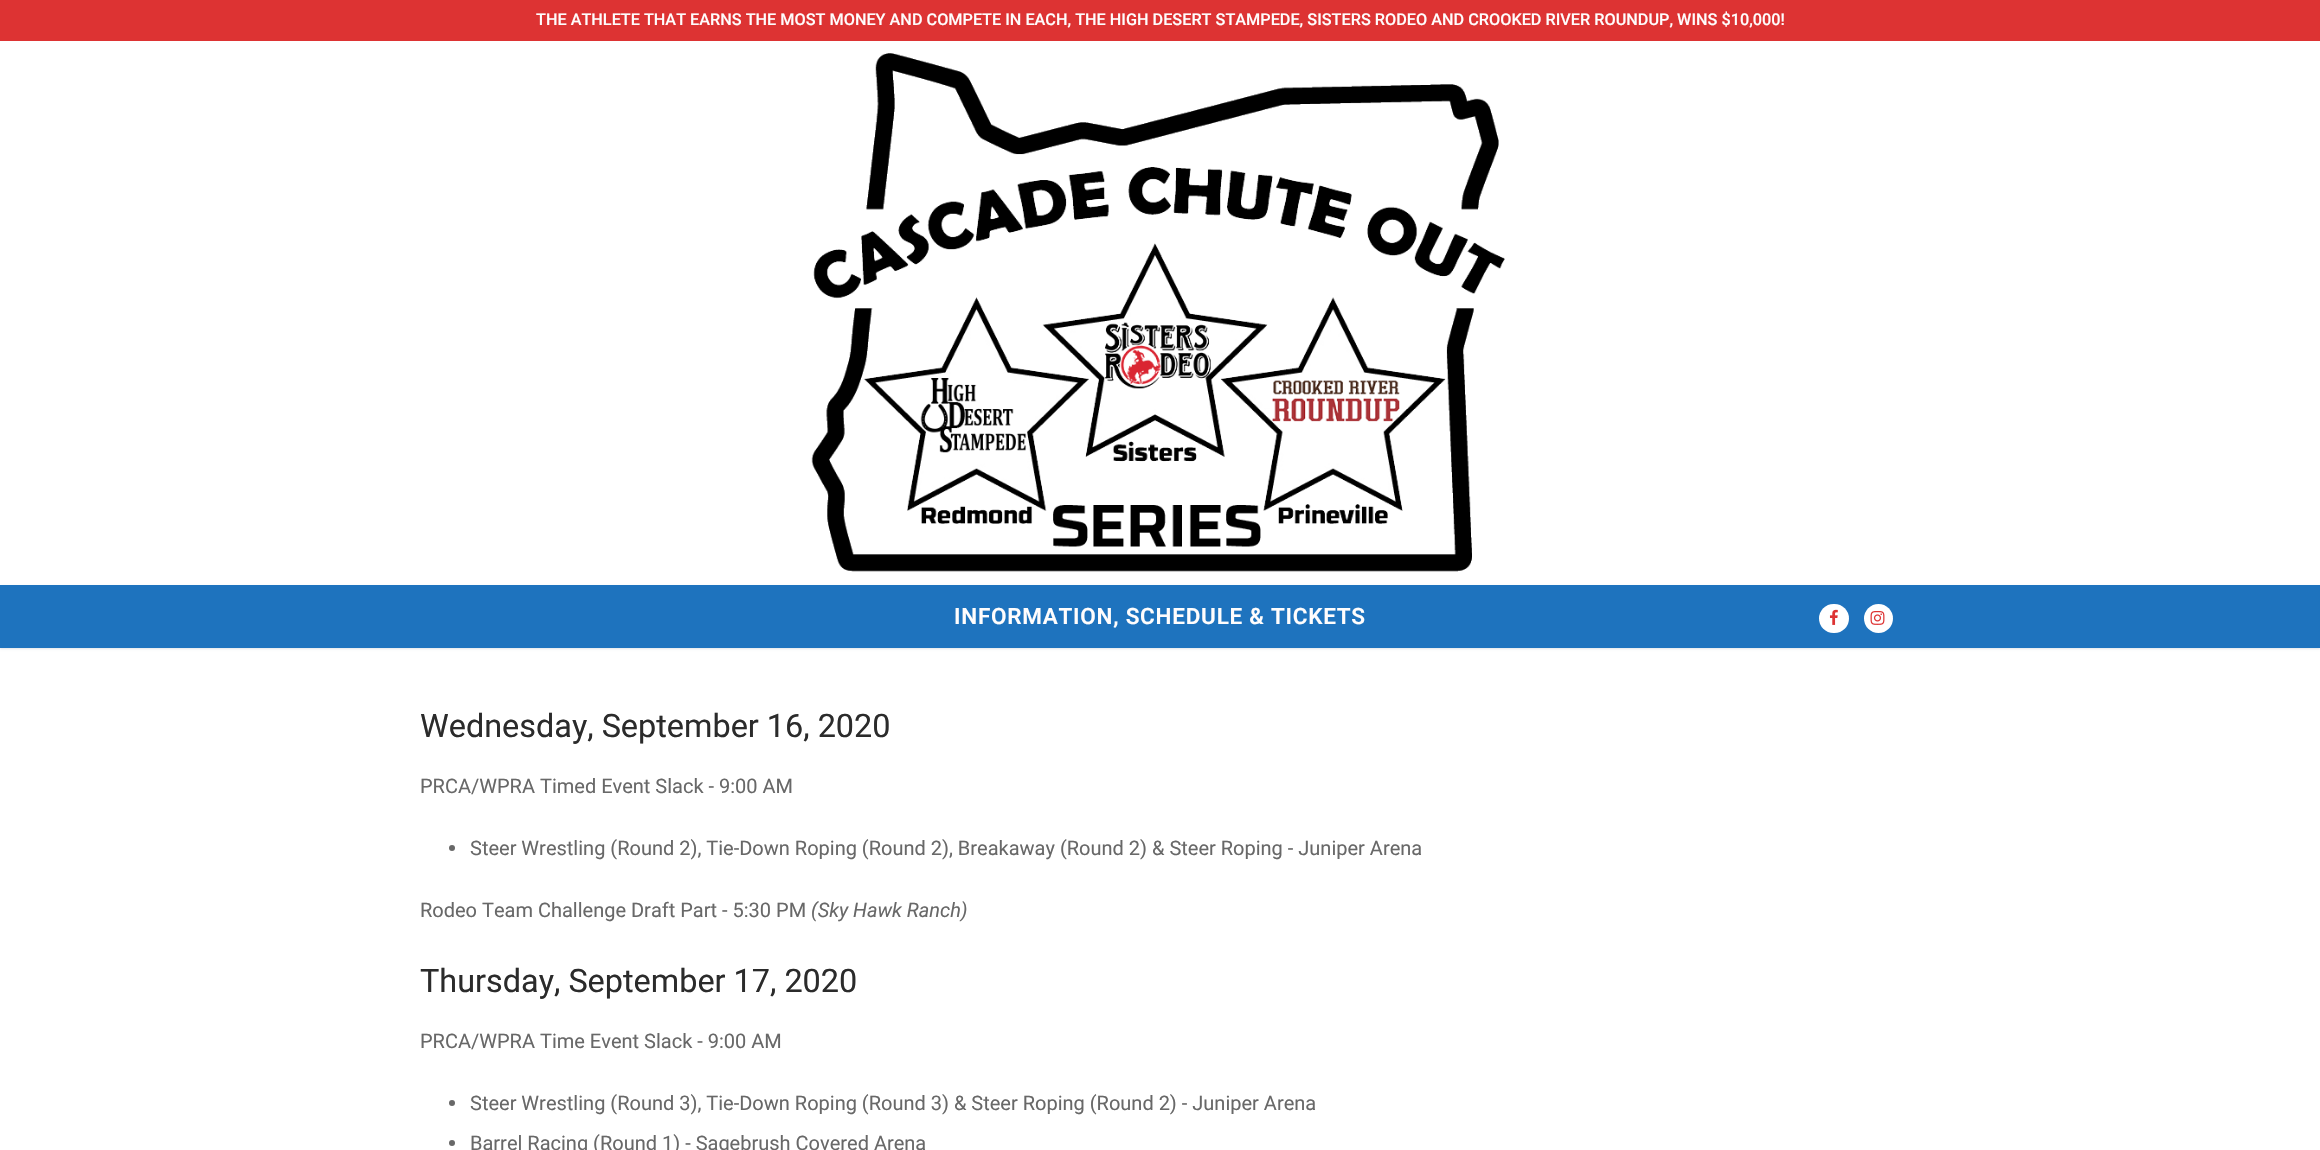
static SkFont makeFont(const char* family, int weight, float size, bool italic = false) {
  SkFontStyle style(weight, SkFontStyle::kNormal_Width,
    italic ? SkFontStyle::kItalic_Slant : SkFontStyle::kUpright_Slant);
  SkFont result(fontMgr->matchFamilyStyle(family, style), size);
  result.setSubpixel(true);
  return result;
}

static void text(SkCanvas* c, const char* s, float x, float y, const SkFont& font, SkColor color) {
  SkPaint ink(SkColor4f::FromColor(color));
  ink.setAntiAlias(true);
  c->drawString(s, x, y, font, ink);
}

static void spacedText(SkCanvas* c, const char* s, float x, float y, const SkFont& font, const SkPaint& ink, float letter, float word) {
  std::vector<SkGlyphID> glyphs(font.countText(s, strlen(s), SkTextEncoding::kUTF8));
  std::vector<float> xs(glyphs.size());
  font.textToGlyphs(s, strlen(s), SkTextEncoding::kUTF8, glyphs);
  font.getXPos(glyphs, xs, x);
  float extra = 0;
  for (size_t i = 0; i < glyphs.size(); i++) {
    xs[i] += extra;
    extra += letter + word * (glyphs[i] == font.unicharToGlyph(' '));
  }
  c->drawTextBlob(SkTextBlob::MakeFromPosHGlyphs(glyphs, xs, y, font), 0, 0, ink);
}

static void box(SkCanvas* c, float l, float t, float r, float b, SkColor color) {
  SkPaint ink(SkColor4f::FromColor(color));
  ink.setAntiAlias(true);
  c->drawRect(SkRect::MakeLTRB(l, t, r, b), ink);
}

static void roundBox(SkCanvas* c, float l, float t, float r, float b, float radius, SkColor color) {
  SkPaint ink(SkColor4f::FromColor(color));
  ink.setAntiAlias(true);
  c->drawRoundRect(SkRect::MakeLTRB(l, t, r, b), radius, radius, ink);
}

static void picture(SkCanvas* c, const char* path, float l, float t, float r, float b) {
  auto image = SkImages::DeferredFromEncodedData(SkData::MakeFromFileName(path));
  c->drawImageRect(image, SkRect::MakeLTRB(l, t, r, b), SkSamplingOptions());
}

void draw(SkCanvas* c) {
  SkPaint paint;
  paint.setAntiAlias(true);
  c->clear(0xffffffff);
  box(c, 0, 0, 2320, 41, 0xffdd3333);
  SkFont face1 = makeFont("Roboto", 500, 16.25f);
  text(c, "THE ATHLETE THAT EARNS THE MOST MONEY AND COMPETE IN EACH, THE HIGH DESERT STAMPEDE, SISTERS RODEO AND CROOKED RIVER ROUNDUP, WINS $10,000!", 536, 25, face1, 0xfffffdfd);
  picture(c, "img_01.png", 811, 53, 1505, 572);
  paint.setColor(0xffe1e5ea);
  paint.setMaskFilter(SkMaskFilter::MakeBlur(kNormal_SkBlurStyle, 1));
  c->drawRect(SkRect::MakeLTRB(0, 586, 2320, 649), paint);
  paint.setMaskFilter(nullptr);
  box(c, 0, 585, 2320, 648, 0xff1e73be);
  SkFont face2 = makeFont("Roboto", 600, 22.5f);
  paint.setColor(0xfffffdfd);
  spacedText(c, "INFORMATION, SCHEDULE & TICKETS", 954, 624, face2, paint, 0.75f, 0);
  roundBox(c, 1819, 604, 1849, 633, 14.5f, 0xffffffff);
  picture(c, "img_02.png", 1829, 609, 1838, 625);
  paint.setColor(0xffffffff);
  c->drawCircle(1878.5f, 618.5f, 14.5f, paint);
  picture(c, "img_03.png", 1870, 611, 1885, 625);
  SkFont face3 = makeFont("Roboto", 400, 32.4f);
  text(c, "Wednesday, September 16, 2020", 420, 737, face3, 0xff2b2b2b);
  SkFont face4 = makeFont("Roboto", 400, 20);
  text(c, "PRCA/WPRA Timed Event Slack - 9:00 AM", 420, 793, face4, 0xff686868);
  paint.setColor(0xff686868);
  c->drawCircle(452, 848, 3, paint);
  text(c, "Steer Wrestling (Round 2), Tie-Down Roping (Round 2), Breakaway (Round 2) & Steer Roping - Juniper Arena", 470, 855, face4, 0xff686868);
  text(c, "Rodeo Team Challenge Draft Part - 5:30 PM", 420, 917, face4, 0xff686868);
  SkFont face5 = makeFont("Roboto", 400, 20, true);
  text(c, "(Sky Hawk Ranch)", 811, 917, face5, 0xff686868);
  text(c, "Thursday, September 17, 2020", 420, 992, face3, 0xff2b2b2b);
  text(c, "PRCA/WPRA Time Event Slack - 9:00 AM", 420, 1048, face4, 0xff686868);
  c->drawCircle(452, 1103, 3, paint);
  text(c, "Steer Wrestling (Round 3), Tie-Down Roping (Round 3) & Steer Roping (Round 2) - Juniper Arena", 470, 1110, face4, 0xff686868);
  c->drawCircle(452, 1143, 3, paint);
  text(c, "Barrel Racing (Round 1) - Sagebrush Covered Arena", 470, 1150, face4, 0xff686868);
}
